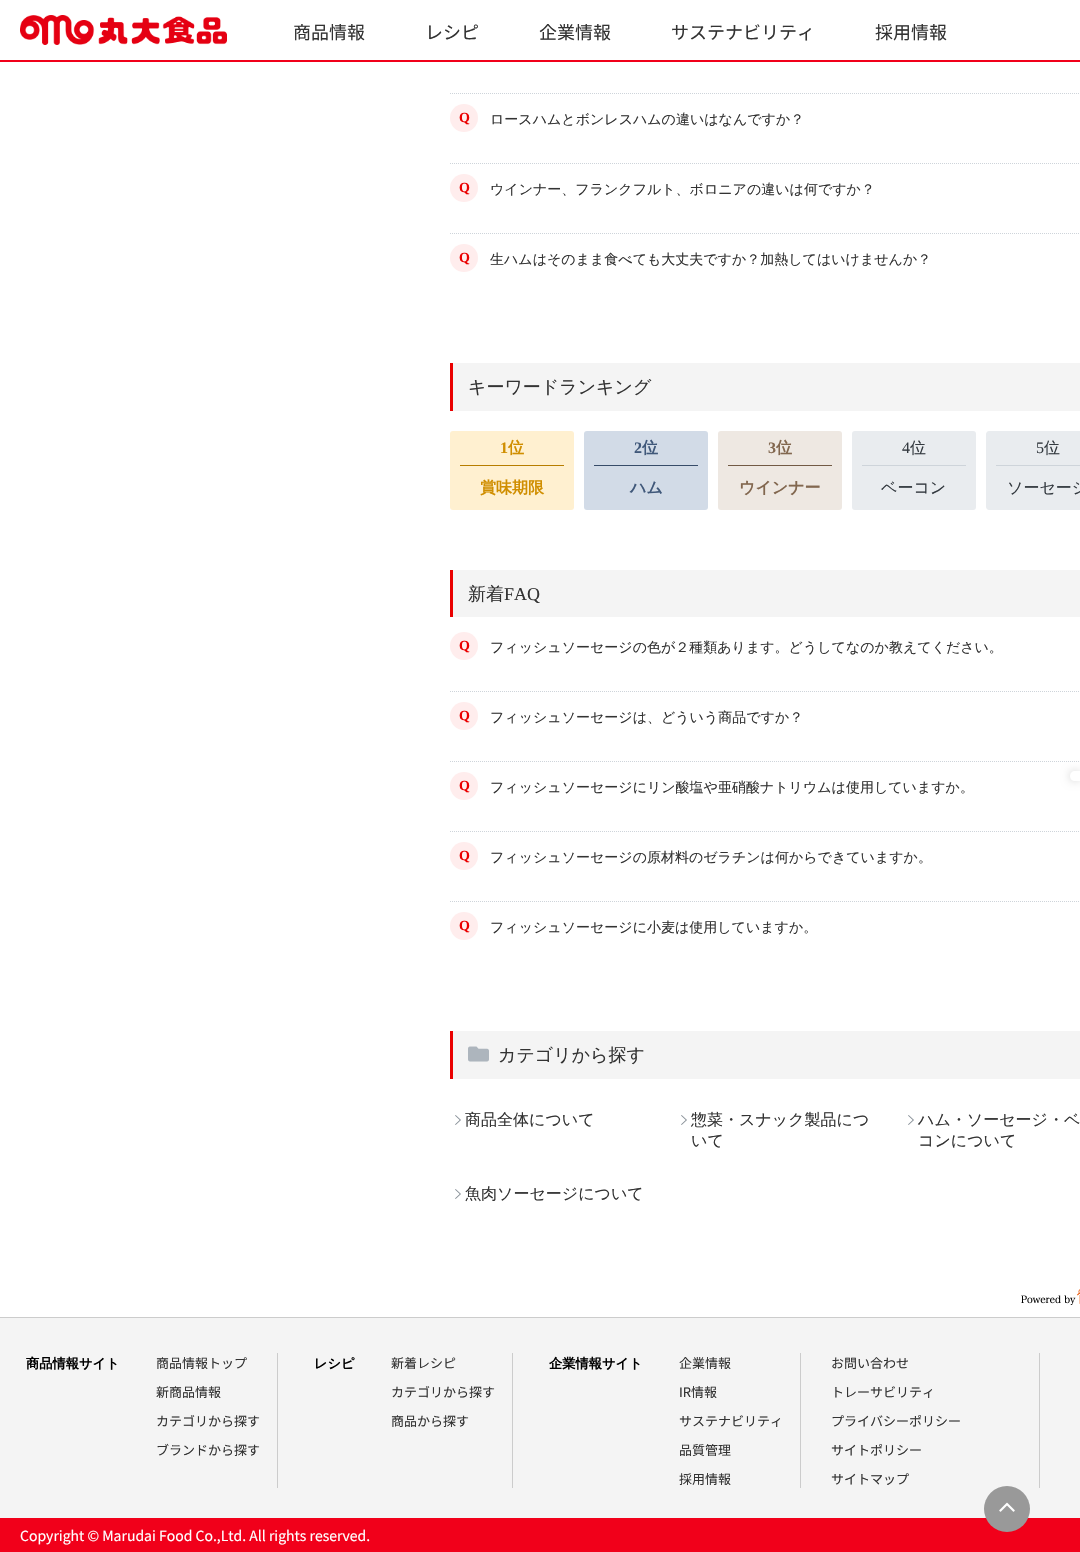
static SkFont makeFont(const char* family, int weight, float size, bool italic = false) {
  SkFontStyle style(weight, SkFontStyle::kNormal_Width,
    italic ? SkFontStyle::kItalic_Slant : SkFontStyle::kUpright_Slant);
  SkFont result(fontMgr->matchFamilyStyle(family, style), size);
  result.setSubpixel(true);
  return result;
}

static void text(SkCanvas* c, const char* s, float x, float y, const SkFont& font, SkColor color) {
  SkPaint ink(SkColor4f::FromColor(color));
  ink.setAntiAlias(true);
  c->drawString(s, x, y, font, ink);
}

static void box(SkCanvas* c, float l, float t, float r, float b, SkColor color) {
  SkPaint ink(SkColor4f::FromColor(color));
  ink.setAntiAlias(true);
  c->drawRect(SkRect::MakeLTRB(l, t, r, b), ink);
}

static void roundBox(SkCanvas* c, float l, float t, float r, float b, float radius, SkColor color) {
  SkPaint ink(SkColor4f::FromColor(color));
  ink.setAntiAlias(true);
  c->drawRoundRect(SkRect::MakeLTRB(l, t, r, b), radius, radius, ink);
}

static void picture(SkCanvas* c, const char* path, float l, float t, float r, float b) {
  auto image = SkImages::DeferredFromEncodedData(SkData::MakeFromFileName(path));
  c->drawImageRect(image, SkRect::MakeLTRB(l, t, r, b), SkSamplingOptions());
}

void draw(SkCanvas* c) {
  SkPaint paint;
  paint.setAntiAlias(true);
  c->clear(0xffffffff);
  box(c, 0, 60, 1080, 62, 0xfff1001a);
  picture(c, "img_01.png", 20, 15, 227, 45);
  SkFont face1 = makeFont("Noto Sans JP", 400, 18);
  text(c, "商品情報", 293, 39, face1, 0xff333333);
  text(c, "レシピ", 425, 39, face1, 0xff333333);
  text(c, "企業情報", 539, 39, face1, 0xff333333);
  text(c, "サステナビリティ", 671, 39, face1, 0xff333333);
  text(c, "採用情報", 875, 39, face1, 0xff333333);
  paint.setStyle(SkPaint::kStroke_Style);
  paint.setStrokeWidth(1);
  paint.setColor(0xffced4da);
  paint.setPathEffect(SkDashPathEffect::Make({{1, 1}}, 0));
  c->drawPath(SkPathBuilder().moveTo(450, 93.5f).lineTo(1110, 93.5f).detach(), paint);
  paint.setPathEffect(nullptr);
  paint.setStyle(SkPaint::kFill_Style);
  paint.setColor(0xffffeded);
  c->drawCircle(464, 118, 14, paint);
  SkFont face2 = makeFont("Liberation Serif", 700, 14);
  text(c, "Q", 459, 122, face2, 0xffea0000);
  SkFont face3 = makeFont("WenQuanYi Zen Hei", 500, 14);
  text(c, "ロースハムとボンレスハムの違いはなんですか？", 490, 124, face3, 0xff333333);
  paint.setStyle(SkPaint::kStroke_Style);
  paint.setColor(0xffced4da);
  paint.setPathEffect(SkDashPathEffect::Make({{1, 1}}, 0));
  c->drawPath(SkPathBuilder().moveTo(450, 163.5f).lineTo(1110, 163.5f).detach(), paint);
  paint.setPathEffect(nullptr);
  paint.setStyle(SkPaint::kFill_Style);
  paint.setColor(0xffffeded);
  c->drawCircle(464, 188, 14, paint);
  text(c, "Q", 459, 192, face2, 0xffea0000);
  text(c, "ウインナー、フランクフルト、ボロニアの違いは何ですか？", 490, 194, face3, 0xff333333);
  paint.setStyle(SkPaint::kStroke_Style);
  paint.setColor(0xffced4da);
  paint.setPathEffect(SkDashPathEffect::Make({{1, 1}}, 0));
  c->drawPath(SkPathBuilder().moveTo(450, 233.5f).lineTo(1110, 233.5f).detach(), paint);
  paint.setPathEffect(nullptr);
  paint.setStyle(SkPaint::kFill_Style);
  paint.setColor(0xffffeded);
  c->drawCircle(464, 258, 14, paint);
  text(c, "Q", 459, 262, face2, 0xffea0000);
  text(c, "生ハムはそのまま食べても大丈夫ですか？加熱してはいけませんか？", 490, 264, face3, 0xff333333);
  box(c, 453, 363, 1080, 411, 0xfff4f4f4);
  box(c, 450, 363, 453, 411, 0xffea0000);
  SkFont face4 = makeFont("WenQuanYi Zen Hei", 500, 18);
  text(c, "キーワードランキング", 468, 393, face4, 0xff333333);
  roundBox(c, 450, 431, 574, 510, 3, 0xfffff0d0);
  box(c, 460, 465, 564, 466, 0xffb77d00);
  SkFont face5 = makeFont("Liberation Serif", 700, 16);
  text(c, "1", 500, 453, face5, 0xffd08e00);
  SkFont face6 = makeFont("WenQuanYi Zen Hei", 700, 16);
  text(c, "位", 508, 453, face6, 0xffd08e00);
  text(c, "賞味期限", 480, 493, face6, 0xffd08e00);
  roundBox(c, 584, 431, 708, 510, 3, 0xffd2dbe7);
  box(c, 594, 465, 698, 466, 0xff374c69);
  text(c, "2", 634, 453, face5, 0xff40587a);
  text(c, "位", 642, 453, face6, 0xff40587a);
  text(c, "ハム", 630, 493, face6, 0xff40587a);
  roundBox(c, 718, 431, 842, 510, 3, 0xffeee8e2);
  box(c, 728, 465, 832, 466, 0xff725a45);
  text(c, "3", 768, 453, face5, 0xff82674f);
  text(c, "位", 776, 453, face6, 0xff82674f);
  text(c, "ウインナー", 739, 493, face6, 0xff82674f);
  roundBox(c, 852, 431, 976, 510, 3, 0xffe9ecef);
  box(c, 862, 465, 966, 466, 0xffced4da);
  SkFont face7 = makeFont("Liberation Serif", 400, 16);
  text(c, "4", 902, 453, face7, 0xff343a40);
  SkFont face8 = makeFont("WenQuanYi Zen Hei", 500, 16);
  text(c, "位", 910, 453, face8, 0xff343a40);
  text(c, "ベーコン", 881, 493, face8, 0xff343a40);
  paint.setColor(0xffe9ecef);
  c->drawPath(SkPathBuilder().moveTo(989, 431).lineTo(1080, 431).lineTo(1080, 510).lineTo(989, 510).cubicTo(987.5f, 510, 986, 508.5f, 986, 507).lineTo(986, 434).cubicTo(986, 432.5f, 987.5f, 431, 989, 431).close().detach(), paint);
  box(c, 996, 465, 1080, 466, 0xffced4da);
  text(c, "5", 1036, 453, face7, 0xff343a40);
  text(c, "位", 1044, 453, face8, 0xff343a40);
  text(c, "ソーセージ", 1007, 493, face8, 0xff343a40);
  box(c, 453, 570, 1080, 617, 0xfff4f4f4);
  box(c, 450, 570, 453, 617, 0xffea0000);
  text(c, "新着", 468, 600, face4, 0xff333333);
  SkFont face9 = makeFont("Liberation Serif", 400, 18);
  text(c, "FAQ", 504, 600, face9, 0xff333333);
  paint.setColor(0xffffeded);
  c->drawCircle(464, 646, 14, paint);
  text(c, "Q", 459, 650, face2, 0xffea0000);
  text(c, "フィッシュソーセージの色が２種類あります。どうしてなのか教えてください。", 490, 652, face3, 0xff333333);
  paint.setStyle(SkPaint::kStroke_Style);
  paint.setColor(0xffced4da);
  paint.setPathEffect(SkDashPathEffect::Make({{1, 1}}, 0));
  c->drawPath(SkPathBuilder().moveTo(450, 691.5f).lineTo(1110, 691.5f).detach(), paint);
  paint.setPathEffect(nullptr);
  paint.setStyle(SkPaint::kFill_Style);
  paint.setColor(0xffffeded);
  c->drawCircle(464, 716, 14, paint);
  text(c, "Q", 459, 720, face2, 0xffea0000);
  text(c, "フィッシュソーセージは、どういう商品ですか？", 490, 722, face3, 0xff333333);
  paint.setStyle(SkPaint::kStroke_Style);
  paint.setColor(0xffced4da);
  paint.setPathEffect(SkDashPathEffect::Make({{1, 1}}, 0));
  c->drawPath(SkPathBuilder().moveTo(450, 761.5f).lineTo(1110, 761.5f).detach(), paint);
  paint.setPathEffect(nullptr);
  paint.setStyle(SkPaint::kFill_Style);
  paint.setColor(0xffffeded);
  c->drawCircle(464, 786, 14, paint);
  text(c, "Q", 459, 790, face2, 0xffea0000);
  text(c, "フィッシュソーセージにリン酸塩や亜硝酸ナトリウムは使用していますか。", 490, 792, face3, 0xff333333);
  paint.setStyle(SkPaint::kStroke_Style);
  paint.setColor(0xffced4da);
  paint.setPathEffect(SkDashPathEffect::Make({{1, 1}}, 0));
  c->drawPath(SkPathBuilder().moveTo(450, 831.5f).lineTo(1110, 831.5f).detach(), paint);
  paint.setPathEffect(nullptr);
  paint.setStyle(SkPaint::kFill_Style);
  paint.setColor(0xffffeded);
  c->drawCircle(464, 856, 14, paint);
  text(c, "Q", 459, 860, face2, 0xffea0000);
  text(c, "フィッシュソーセージの原材料のゼラチンは何からできていますか。", 490, 862, face3, 0xff333333);
  paint.setStyle(SkPaint::kStroke_Style);
  paint.setColor(0xffced4da);
  paint.setPathEffect(SkDashPathEffect::Make({{1, 1}}, 0));
  c->drawPath(SkPathBuilder().moveTo(450, 901.5f).lineTo(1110, 901.5f).detach(), paint);
  paint.setPathEffect(nullptr);
  paint.setStyle(SkPaint::kFill_Style);
  paint.setColor(0xffffeded);
  c->drawCircle(464, 926, 14, paint);
  text(c, "Q", 459, 930, face2, 0xffea0000);
  text(c, "フィッシュソーセージに小麦は使用していますか。", 490, 932, face3, 0xff333333);
  box(c, 453, 1031, 1080, 1079, 0xfff4f4f4);
  box(c, 450, 1031, 453, 1079, 0xffea0000);
  picture(c, "img_02.png", 468, 1046, 489, 1062);
  text(c, "カテゴリから探す", 498, 1061, face4, 0xff333333);
  picture(c, "img_03.png", 455, 1115, 461, 1125);
  text(c, "商品全体について", 465, 1125, face8, 0xff333333);
  picture(c, "img_03.png", 681, 1115, 687, 1125);
  text(c, "惣菜・スナック製品につ", 691, 1125, face8, 0xff333333);
  text(c, "いて", 691, 1146, face8, 0xff333333);
  picture(c, "img_03.png", 908, 1115, 914, 1125);
  text(c, "ハム・ソーセージ・ベ", 918, 1125, face8, 0xff333333);
  text(c, "コンについて", 918, 1146, face8, 0xff333333);
  picture(c, "img_03.png", 455, 1189, 461, 1199);
  text(c, "魚肉ソーセージについて", 465, 1199, face8, 0xff333333);
  picture(c, "img_04.png", 1021, 1289, 1080, 1305);
  paint.setColor(0x33000000);
  paint.setMaskFilter(SkMaskFilter::MakeBlur(kNormal_SkBlurStyle, 5));
  c->drawRoundRect(SkRect::MakeLTRB(1070, 771, 1080, 781), 5, 5, paint);
  paint.setMaskFilter(nullptr);
  paint.setColor(0xffffffff);
  c->drawPath(SkPathBuilder().moveTo(1075, 771).lineTo(1080, 771).lineTo(1080, 781).lineTo(1075, 781).cubicTo(1072, 781, 1070, 779, 1070, 776).cubicTo(1070, 773, 1072, 771, 1075, 771).close().detach(), paint);
  box(c, 0, 1318, 1080, 1518, 0xfff4f4f4);
  box(c, 0, 1317, 1080, 1318, 0xffcccccc);
  SkFont face10 = makeFont("WenQuanYi Zen Hei", 700, 13.25f);
  text(c, "商品情報サイト", 26, 1368, face10, 0xff000000);
  SkFont face11 = makeFont("Noto Sans JP", 400, 13);
  text(c, "商品情報トップ", 156, 1368, face11, 0xff333333);
  text(c, "新商品情報", 156, 1397, face11, 0xff333333);
  text(c, "カテゴリから探す", 156, 1426, face11, 0xff333333);
  text(c, "ブランドから探す", 156, 1455, face11, 0xff333333);
  box(c, 277, 1353, 278, 1488, 0xffcccccc);
  text(c, "レシピ", 314, 1368, face10, 0xff000000);
  text(c, "新着レシピ", 391, 1368, face11, 0xff333333);
  text(c, "カテゴリから探す", 391, 1397, face11, 0xff333333);
  text(c, "商品から探す", 391, 1426, face11, 0xff333333);
  box(c, 512, 1353, 513, 1488, 0xffcccccc);
  text(c, "企業情報サイト", 549, 1368, face10, 0xff000000);
  text(c, "企業情報", 679, 1368, face11, 0xff333333);
  text(c, "IR情報", 679, 1397, face11, 0xff333333);
  text(c, "サステナビリティ", 679, 1426, face11, 0xff333333);
  text(c, "品質管理", 679, 1455, face11, 0xff333333);
  text(c, "採用情報", 679, 1484, face11, 0xff333333);
  box(c, 1039, 1353, 1040, 1488, 0xffcccccc);
  box(c, 800, 1353, 801, 1488, 0xffcccccc);
  text(c, "お問い合わせ", 831, 1368, face11, 0xff333333);
  text(c, "トレーサビリティ", 831, 1397, face11, 0xff333333);
  text(c, "プライバシーポリシー", 831, 1426, face11, 0xff333333);
  text(c, "サイトポリシー", 831, 1455, face11, 0xff333333);
  text(c, "サイトマップ", 831, 1484, face11, 0xff333333);
  box(c, 0, 1518, 1080, 1552, 0xfff1001a);
  paint.setColor(0xff999999);
  c->drawCircle(1007, 1509, 23, paint);
  picture(c, "img_05.png", 999, 1502, 1015, 1512);
  SkFont face12 = makeFont("Noto Sans JP", 400, 14);
  text(c, "Copyright © Marudai Food Co.,Ltd. All rights reserved.", 20, 1541, face12, 0xffffffff);
}
